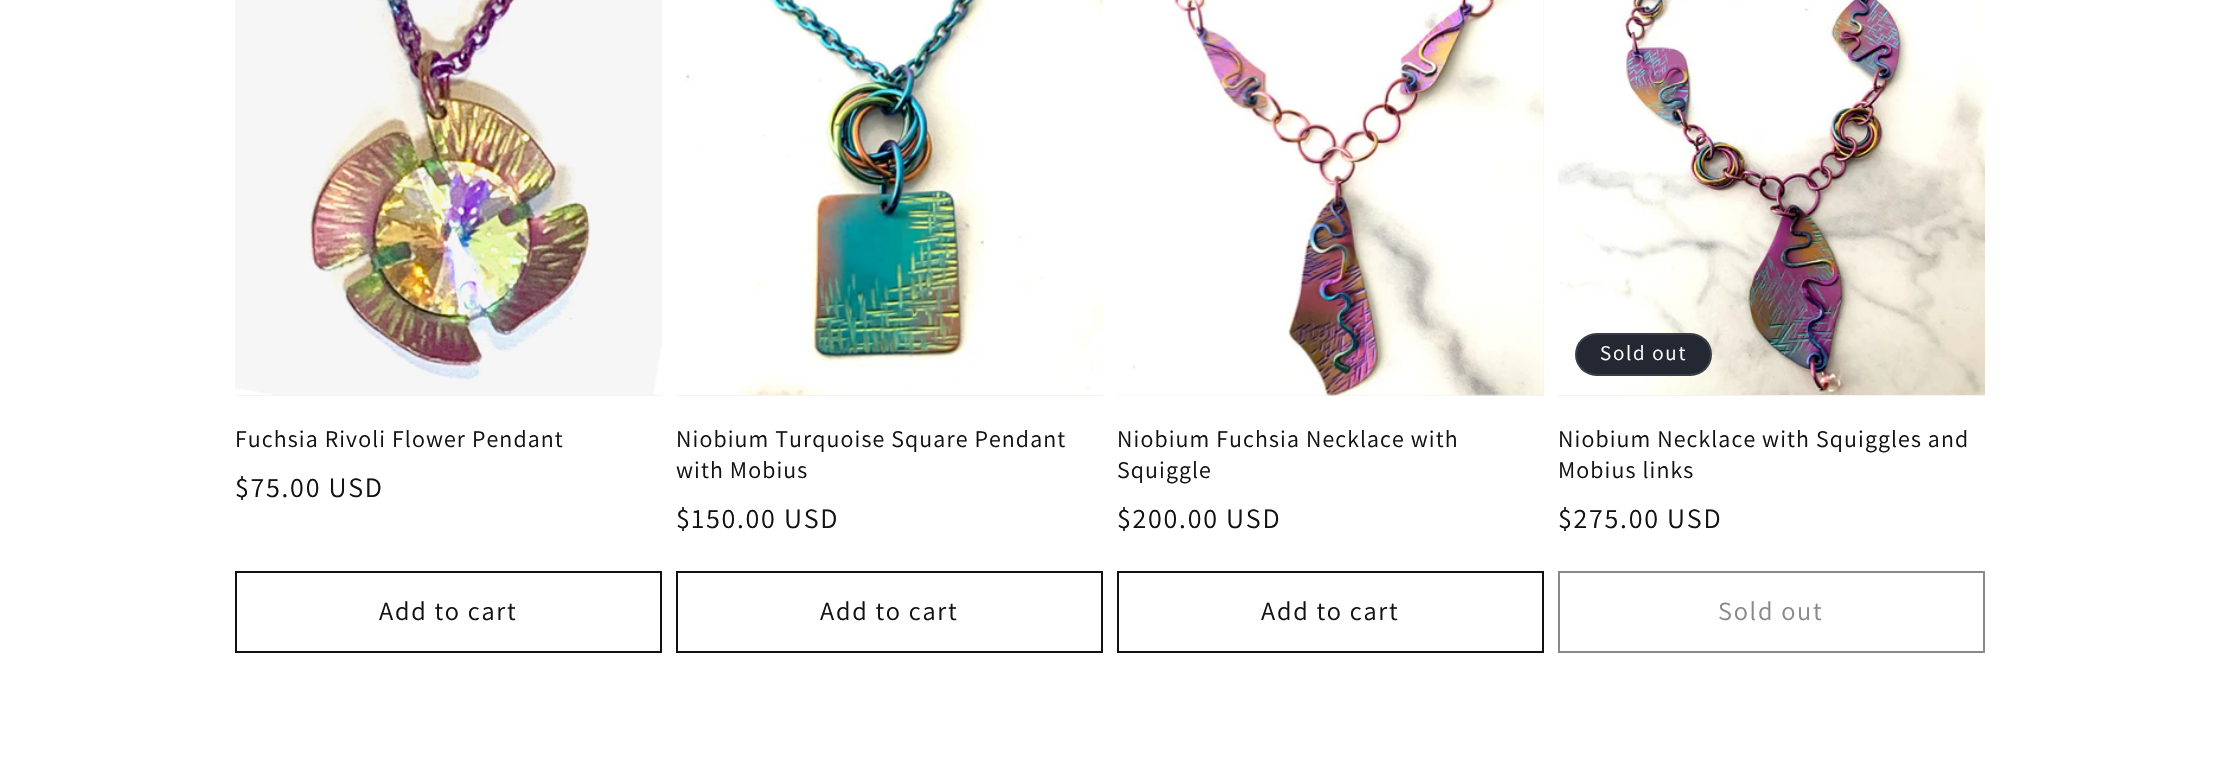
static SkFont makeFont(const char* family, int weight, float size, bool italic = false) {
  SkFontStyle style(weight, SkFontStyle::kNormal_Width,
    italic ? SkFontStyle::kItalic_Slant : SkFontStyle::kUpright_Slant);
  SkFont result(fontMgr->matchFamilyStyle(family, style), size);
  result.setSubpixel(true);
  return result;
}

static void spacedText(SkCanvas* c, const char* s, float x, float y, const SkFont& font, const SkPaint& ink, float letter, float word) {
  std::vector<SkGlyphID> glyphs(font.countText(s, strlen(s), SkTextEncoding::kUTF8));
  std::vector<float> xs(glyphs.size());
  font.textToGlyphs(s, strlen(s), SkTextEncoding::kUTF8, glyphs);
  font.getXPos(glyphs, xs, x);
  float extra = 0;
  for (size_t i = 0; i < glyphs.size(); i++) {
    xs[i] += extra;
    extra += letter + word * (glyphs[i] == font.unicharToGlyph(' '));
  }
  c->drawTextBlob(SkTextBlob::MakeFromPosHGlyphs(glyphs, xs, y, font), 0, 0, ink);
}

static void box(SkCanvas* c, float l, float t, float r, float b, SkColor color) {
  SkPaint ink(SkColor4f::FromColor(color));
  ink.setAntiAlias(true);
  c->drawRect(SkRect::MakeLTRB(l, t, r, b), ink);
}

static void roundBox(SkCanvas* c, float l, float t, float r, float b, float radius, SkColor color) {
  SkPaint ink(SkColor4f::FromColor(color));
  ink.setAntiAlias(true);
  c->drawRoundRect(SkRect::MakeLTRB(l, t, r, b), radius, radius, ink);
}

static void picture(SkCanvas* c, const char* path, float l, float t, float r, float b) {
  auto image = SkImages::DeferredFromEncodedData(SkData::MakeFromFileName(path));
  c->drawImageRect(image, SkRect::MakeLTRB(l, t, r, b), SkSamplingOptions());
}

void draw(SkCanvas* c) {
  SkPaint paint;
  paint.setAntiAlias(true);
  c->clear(0xffffffff);
  box(c, 235, 395, 662, 396, 0xfff3f3f3);
  picture(c, "img_01.png", 235, 0, 662, 395);
  SkFont face1 = makeFont("Assistant", 400, 23.9f);
  paint.setColor(0xff121212);
  spacedText(c, "Fuchsia Rivoli Flower Pendant", 235, 447, face1, paint, 1.1f, 0);
  SkFont face2 = makeFont("Assistant", 400, 28);
  spacedText(c, "$75.00 USD", 235, 497, face2, paint, 1.75f, 0);
  paint.setStyle(SkPaint::kStroke_Style);
  paint.setStrokeWidth(2);
  c->drawRect(SkRect::MakeLTRB(236, 572, 661, 652), paint);
  SkFont face3 = makeFont("Assistant", 400, 26.25f);
  paint.setStyle(SkPaint::kFill_Style);
  spacedText(c, "Add to cart", 379, 620, face3, paint, 1.75f, 0);
  box(c, 676, 395, 1103, 396, 0xfff3f3f3);
  picture(c, "img_02.png", 676, 0, 1103, 395);
  spacedText(c, "Niobium Turquoise Square Pendant", 676, 447, face1, paint, 1.1f, 0);
  spacedText(c, "with Mobius", 676, 478, face1, paint, 1.1f, 0);
  spacedText(c, "$150.00 USD", 676, 528, face2, paint, 1.75f, 0);
  paint.setStyle(SkPaint::kStroke_Style);
  c->drawRect(SkRect::MakeLTRB(677, 572, 1102, 652), paint);
  paint.setStyle(SkPaint::kFill_Style);
  spacedText(c, "Add to cart", 820, 620, face3, paint, 1.75f, 0);
  box(c, 1117, 0, 1544, 396, 0xfff3f3f3);
  picture(c, "img_03.png", 1117, 0, 1544, 396);
  spacedText(c, "Niobium Fuchsia Necklace with", 1117, 447, face1, paint, 1.1f, 0);
  spacedText(c, "Squiggle", 1117, 478, face1, paint, 1.1f, 0);
  spacedText(c, "$200.00 USD", 1117, 528, face2, paint, 1.75f, 0);
  paint.setStyle(SkPaint::kStroke_Style);
  c->drawRect(SkRect::MakeLTRB(1118, 572, 1543, 652), paint);
  paint.setStyle(SkPaint::kFill_Style);
  spacedText(c, "Add to cart", 1261, 620, face3, paint, 1.75f, 0);
  box(c, 1558, 395, 1985, 396, 0xfff3f3f3);
  picture(c, "img_04.png", 1558, 0, 1985, 395);
  roundBox(c, 1575, 333, 1712, 376, 21.5f, 0xff242833);
  paint.setStyle(SkPaint::kStroke_Style);
  paint.setColor(0x1affffff);
  c->drawRoundRect(SkRect::MakeLTRB(1576, 334, 1711, 375), 20.5f, 20.5f, paint);
  SkFont face4 = makeFont("Assistant", 400, 21);
  paint.setStyle(SkPaint::kFill_Style);
  paint.setColor(0xffffffff);
  spacedText(c, "Sold out", 1600, 360, face4, paint, 1.75f, 0);
  paint.setColor(0xff121212);
  spacedText(c, "Niobium Necklace with Squiggles and", 1558, 447, face1, paint, 1.1f, 0);
  spacedText(c, "Mobius links", 1558, 478, face1, paint, 1.1f, 0);
  spacedText(c, "$275.00 USD", 1558, 528, face2, paint, 1.75f, 0);
  paint.setStyle(SkPaint::kStroke_Style);
  paint.setColor(0xff898989);
  c->drawRect(SkRect::MakeLTRB(1559, 572, 1984, 652), paint);
  paint.setStyle(SkPaint::kFill_Style);
  spacedText(c, "Sold out", 1718, 620, face3, paint, 1.75f, 0);
}
